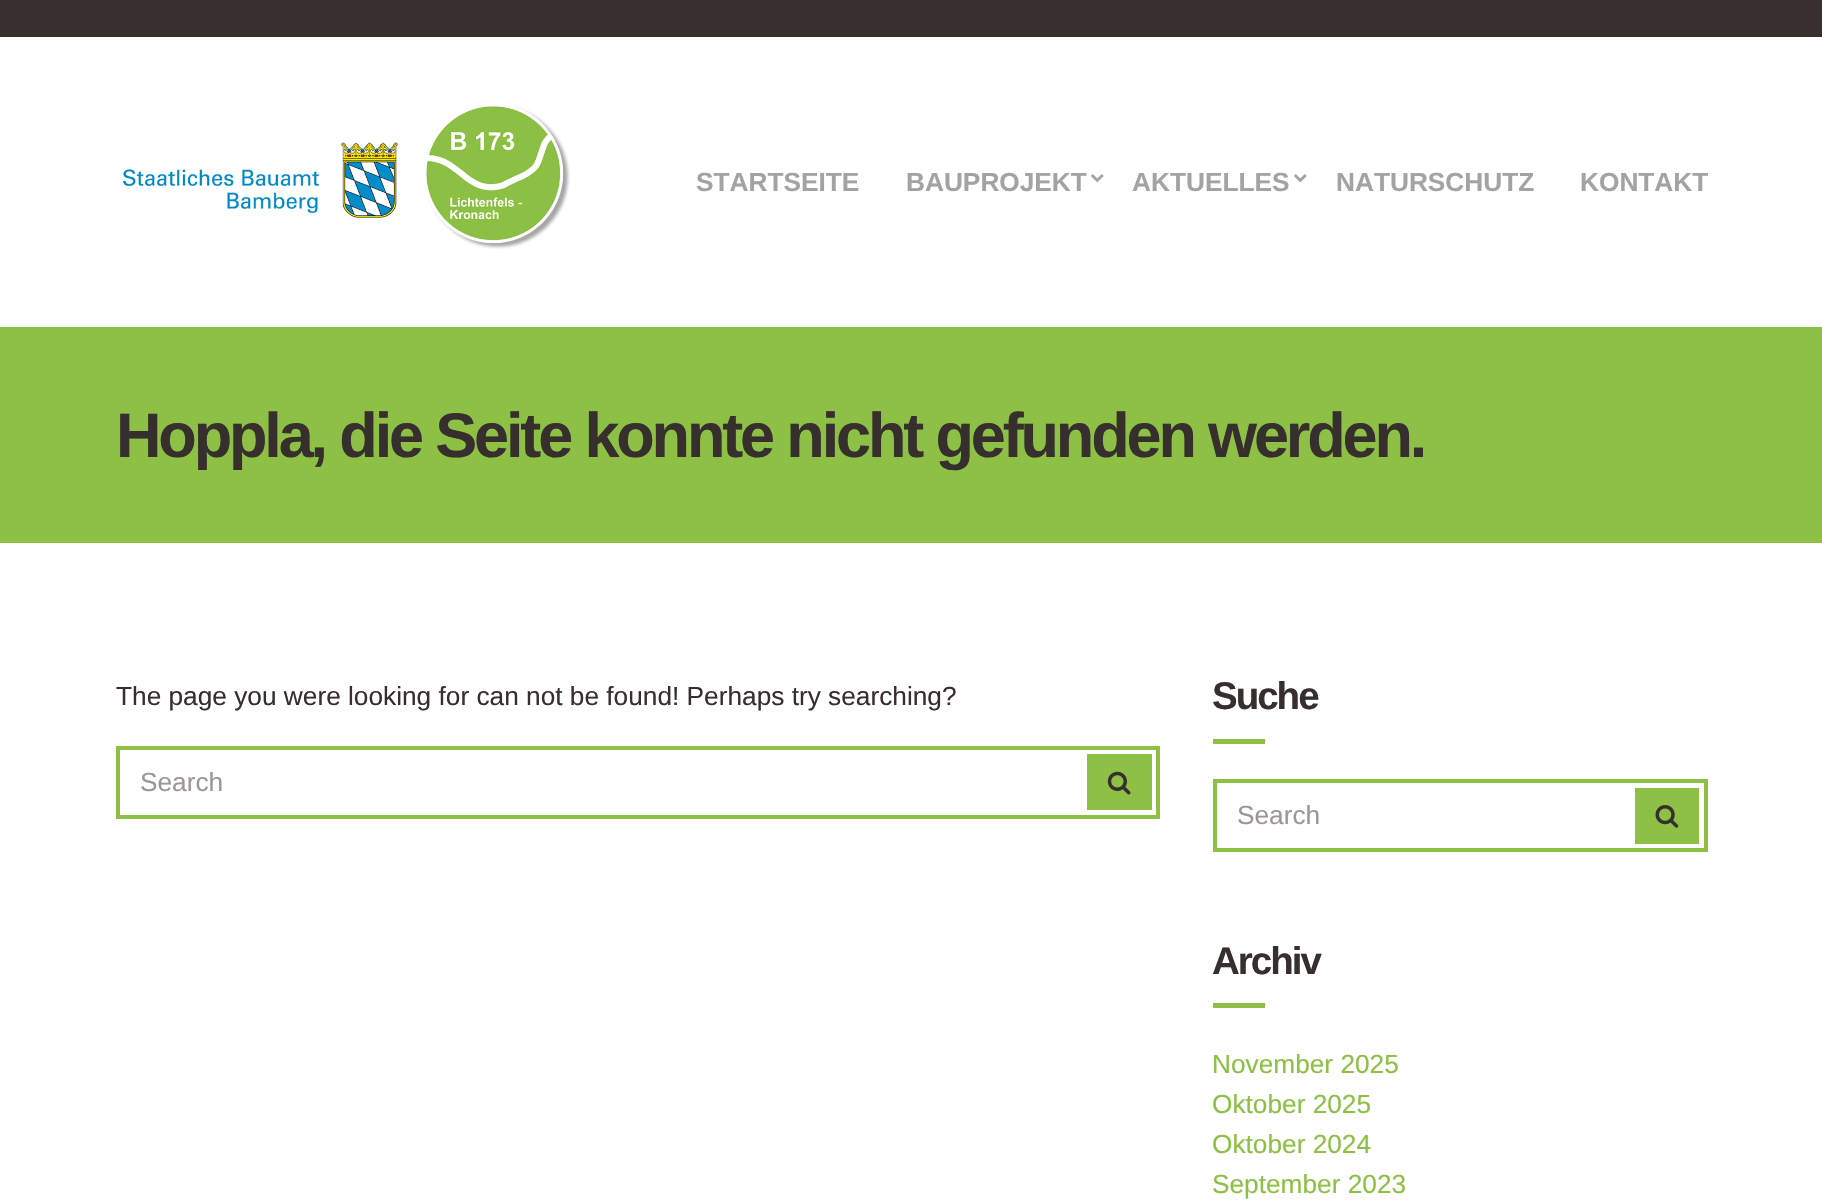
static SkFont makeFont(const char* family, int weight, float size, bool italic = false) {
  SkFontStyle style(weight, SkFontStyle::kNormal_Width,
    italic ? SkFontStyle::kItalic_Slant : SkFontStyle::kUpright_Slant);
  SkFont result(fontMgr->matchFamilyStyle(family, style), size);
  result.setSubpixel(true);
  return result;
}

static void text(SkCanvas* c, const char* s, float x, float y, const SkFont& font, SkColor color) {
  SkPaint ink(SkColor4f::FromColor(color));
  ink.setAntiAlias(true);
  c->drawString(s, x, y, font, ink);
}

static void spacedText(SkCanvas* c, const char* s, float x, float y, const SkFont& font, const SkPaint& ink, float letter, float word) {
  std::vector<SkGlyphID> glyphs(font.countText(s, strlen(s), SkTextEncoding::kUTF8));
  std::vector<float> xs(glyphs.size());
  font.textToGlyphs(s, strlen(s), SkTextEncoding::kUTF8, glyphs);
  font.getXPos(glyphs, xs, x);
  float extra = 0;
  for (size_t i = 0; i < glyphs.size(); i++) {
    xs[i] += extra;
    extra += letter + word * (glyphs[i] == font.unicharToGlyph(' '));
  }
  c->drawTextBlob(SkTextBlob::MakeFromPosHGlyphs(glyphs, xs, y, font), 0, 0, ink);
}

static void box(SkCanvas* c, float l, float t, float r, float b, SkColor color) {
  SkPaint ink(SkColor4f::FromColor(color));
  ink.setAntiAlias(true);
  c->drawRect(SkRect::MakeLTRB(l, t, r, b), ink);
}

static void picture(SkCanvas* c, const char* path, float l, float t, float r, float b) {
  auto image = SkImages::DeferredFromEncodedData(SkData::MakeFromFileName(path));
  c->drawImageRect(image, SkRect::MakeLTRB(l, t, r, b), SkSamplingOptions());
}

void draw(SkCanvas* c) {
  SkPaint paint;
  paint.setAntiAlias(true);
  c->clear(0xffffffff);
  box(c, 0, 0, 1822, 37, 0xff362f2d);
  picture(c, "img_01.png", 123, 106, 570, 249);
  SkFont face1 = makeFont("Liberation Sans", 700, 26.25f);
  text(c, "STARTSEITE", 696, 191, face1, 0xffa3a3a3);
  text(c, "BAUPROJEKT", 906, 191, face1, 0xffa3a3a3);
  picture(c, "img_02.png", 1091, 174, 1104, 183);
  text(c, "AKTUELLES", 1132, 191, face1, 0xffa3a3a3);
  picture(c, "img_02.png", 1294, 174, 1307, 183);
  text(c, "NATURSCHUTZ", 1336, 191, face1, 0xffa3a3a3);
  text(c, "KONTAKT", 1580, 191, face1, 0xffa3a3a3);
  box(c, 0, 327, 1822, 543, 0xff8dc044);
  SkFont face2 = makeFont("Liberation Sans", 700, 63);
  paint.setColor(0xff362f2d);
  spacedText(c, "Hoppla, die Seite konnte nicht gefunden werden.", 116, 457, face2, paint, -3.15f, 0);
  SkFont face3 = makeFont("Liberation Sans", 400, 26.25f);
  text(c, "The page you were looking for can not be found! Perhaps try searching?", 116, 705, face3, 0xff362f2d);
  paint.setStyle(SkPaint::kStroke_Style);
  paint.setStrokeWidth(4);
  paint.setColor(0xff8dc044);
  c->drawRect(SkRect::MakeLTRB(118, 748, 1158, 817), paint);
  text(c, "Search", 140, 791, face3, 0xff9b9796);
  box(c, 1087, 754, 1152, 810, 0xff8dc044);
  picture(c, "img_03.png", 1107, 771, 1131, 795);
  SkFont face4 = makeFont("Liberation Sans", 700, 38.5f);
  paint.setStyle(SkPaint::kFill_Style);
  paint.setColor(0xff362f2d);
  spacedText(c, "Suche", 1212, 709, face4, paint, -2, 0);
  box(c, 1213, 739, 1265, 744, 0xff8dc044);
  paint.setStyle(SkPaint::kStroke_Style);
  paint.setColor(0xff8dc044);
  c->drawRect(SkRect::MakeLTRB(1215, 781, 1706, 850), paint);
  text(c, "Search", 1237, 824, face3, 0xff9b9796);
  box(c, 1635, 788, 1699, 844, 0xff8dc044);
  picture(c, "img_04.png", 1655, 805, 1679, 828);
  paint.setStyle(SkPaint::kFill_Style);
  paint.setColor(0xff362f2d);
  spacedText(c, "Archiv", 1212, 974, face4, paint, -2, 0);
  box(c, 1213, 1003, 1265, 1008, 0xff8dc044);
  text(c, "November 2025", 1212, 1073, face3, 0xff8dc044);
  text(c, "Oktober 2025", 1212, 1113, face3, 0xff8dc044);
  text(c, "Oktober 2024", 1212, 1153, face3, 0xff8dc044);
  text(c, "September 2023", 1212, 1193, face3, 0xff8dc044);
}
